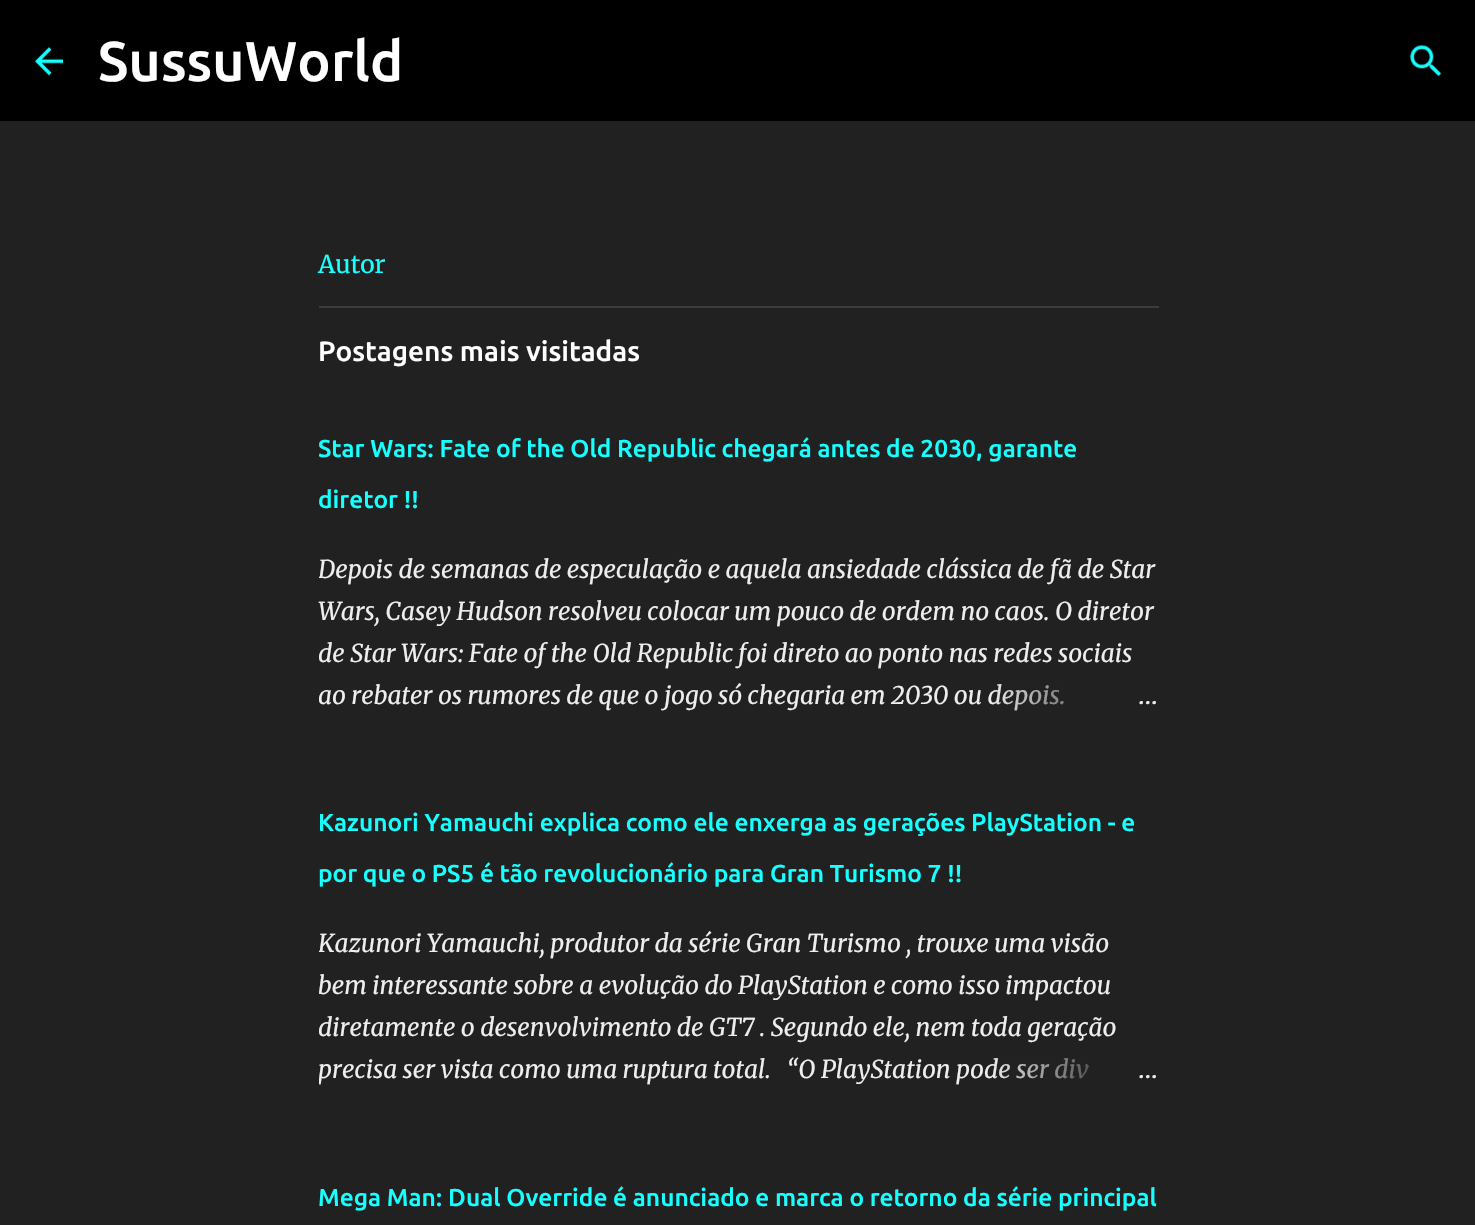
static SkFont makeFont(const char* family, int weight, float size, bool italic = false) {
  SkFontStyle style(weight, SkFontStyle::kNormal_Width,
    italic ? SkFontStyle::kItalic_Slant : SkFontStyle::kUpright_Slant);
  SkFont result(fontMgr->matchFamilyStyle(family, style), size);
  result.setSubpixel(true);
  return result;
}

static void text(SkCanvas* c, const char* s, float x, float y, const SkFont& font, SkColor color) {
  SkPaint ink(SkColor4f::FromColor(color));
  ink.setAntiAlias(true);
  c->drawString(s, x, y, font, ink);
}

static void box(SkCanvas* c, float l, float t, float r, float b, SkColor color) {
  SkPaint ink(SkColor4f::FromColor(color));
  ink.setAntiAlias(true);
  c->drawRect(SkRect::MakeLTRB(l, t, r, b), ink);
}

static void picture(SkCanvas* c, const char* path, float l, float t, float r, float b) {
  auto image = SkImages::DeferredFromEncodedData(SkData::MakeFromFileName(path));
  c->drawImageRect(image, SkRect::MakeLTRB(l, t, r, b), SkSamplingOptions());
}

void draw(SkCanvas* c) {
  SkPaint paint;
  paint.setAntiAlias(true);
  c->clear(0xff212121);
  box(c, 0, 0, 1475, 121, 0xff000000);
  picture(c, "img_01.png", 35, 46, 63, 76);
  SkFont face1 = makeFont("Ubuntu", 500, 56);
  text(c, "SussuWorld", 98, 81, face1, 0xffffffff);
  picture(c, "img_02.png", 1410, 45, 1442, 77);
  SkFont face2 = makeFont("Merriweather", 400, 24.5f);
  text(c, "Autor", 318, 273, face2, 0xff18ffff);
  box(c, 319, 306, 1159, 308, 0xff3c3c3c);
  SkFont face3 = makeFont("Ubuntu", 500, 28);
  text(c, "Postagens mais visitadas", 318, 361, face3, 0xffffffff);
  c->save();
  c->clipRect(SkRect::MakeLTRB(319, 308, 1159, 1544));
  SkFont face4 = makeFont("Ubuntu", 500, 24.5f);
  text(c, "Star Wars: Fate of the Old Republic chegará antes de 2030, garante", 318, 457, face4, 0xff18ffff);
  text(c, "diretor !!", 318, 508, face4, 0xff18ffff);
  c->restore();
  c->save();
  c->clipRect(SkRect::MakeLTRB(319, 548, 1159, 716));
  SkFont face5 = makeFont("Merriweather", 400, 24.5f, true);
  text(c, "Depois de semanas de especulação e aquela ansiedade clássica de fã de Star", 318, 578, face5, 0xffeeeeee);
  c->restore();
  text(c, "Wars, Casey Hudson resolveu colocar um pouco de ordem no caos. O diretor", 318, 620, face5, 0xffeeeeee);
  c->save();
  c->clipRect(SkRect::MakeLTRB(319, 548, 1159, 716));
  text(c, "de Star Wars: Fate of the Old Republic", 318, 662, face5, 0xffeeeeee);
  c->restore();
  text(c, "foi direto ao ponto nas redes sociais", 738, 662, face5, 0xffeeeeee);
  c->save();
  c->clipRect(SkRect::MakeLTRB(319, 548, 1159, 716));
  text(c, "ao rebater os rumores de que o jogo só chegaria em 2030 ou depois.", 318, 704, face5, 0xffeeeeee);
  c->restore();
  {
    const SkColor colors[] = {0xff212121, 0xff212121, 0x00212121};
    const float stops[] = {0, 0.2f, 1};
    const SkPoint ends[] = {{1159, 695}, {991, 695}};
    paint.setShader(SkGradientShader::MakeLinear(ends, colors, stops, 3, SkTileMode::kClamp));
    paint.setAlpha(255);
  }
  c->drawRect(SkRect::MakeLTRB(994, 684, 1063, 711), paint);
  text(c, "…", 1138, 704, face2, 0xffeeeeee);
  text(c, "Kazunori Yamauchi explica como ele enxerga as gerações PlayStation - e", 318, 831, face4, 0xff18ffff);
  text(c, "por que o PS5 é tão revolucionário para Gran Turismo 7 !!", 318, 882, face4, 0xff18ffff);
  c->save();
  c->clipRect(SkRect::MakeLTRB(319, 922, 1159, 1090));
  text(c, "Kazunori Yamauchi, produtor da série Gran Turismo , trouxe uma visão", 318, 952, face5, 0xffeeeeee);
  text(c, "bem interessante sobre a evolução do PlayStation e como isso impactou", 318, 994, face5, 0xffeeeeee);
  text(c, "diretamente o desenvolvimento de GT7 . Segundo ele, nem toda geração", 318, 1036, face5, 0xffeeeeee);
  text(c, "precisa ser vista como uma ruptura total.   “O PlayStation pode ser div", 318, 1078, face5, 0xffeeeeee);
  c->restore();
  {
    const SkColor colors[] = {0xff212121, 0xff212121, 0x00212121};
    const float stops[] = {0, 0.2f, 1};
    const SkPoint ends[] = {{1159, 1069}, {991, 1069}};
    paint.setShader(SkGradientShader::MakeLinear(ends, colors, stops, 3, SkTileMode::kClamp));
    paint.setAlpha(255);
  }
  c->drawRect(SkRect::MakeLTRB(994, 1058, 1088, 1079), paint);
  text(c, "…", 1138, 1078, face2, 0xffeeeeee);
  text(c, "Mega Man: Dual Override é anunciado e marca o retorno da série principal", 318, 1206, face4, 0xff18ffff);
}
